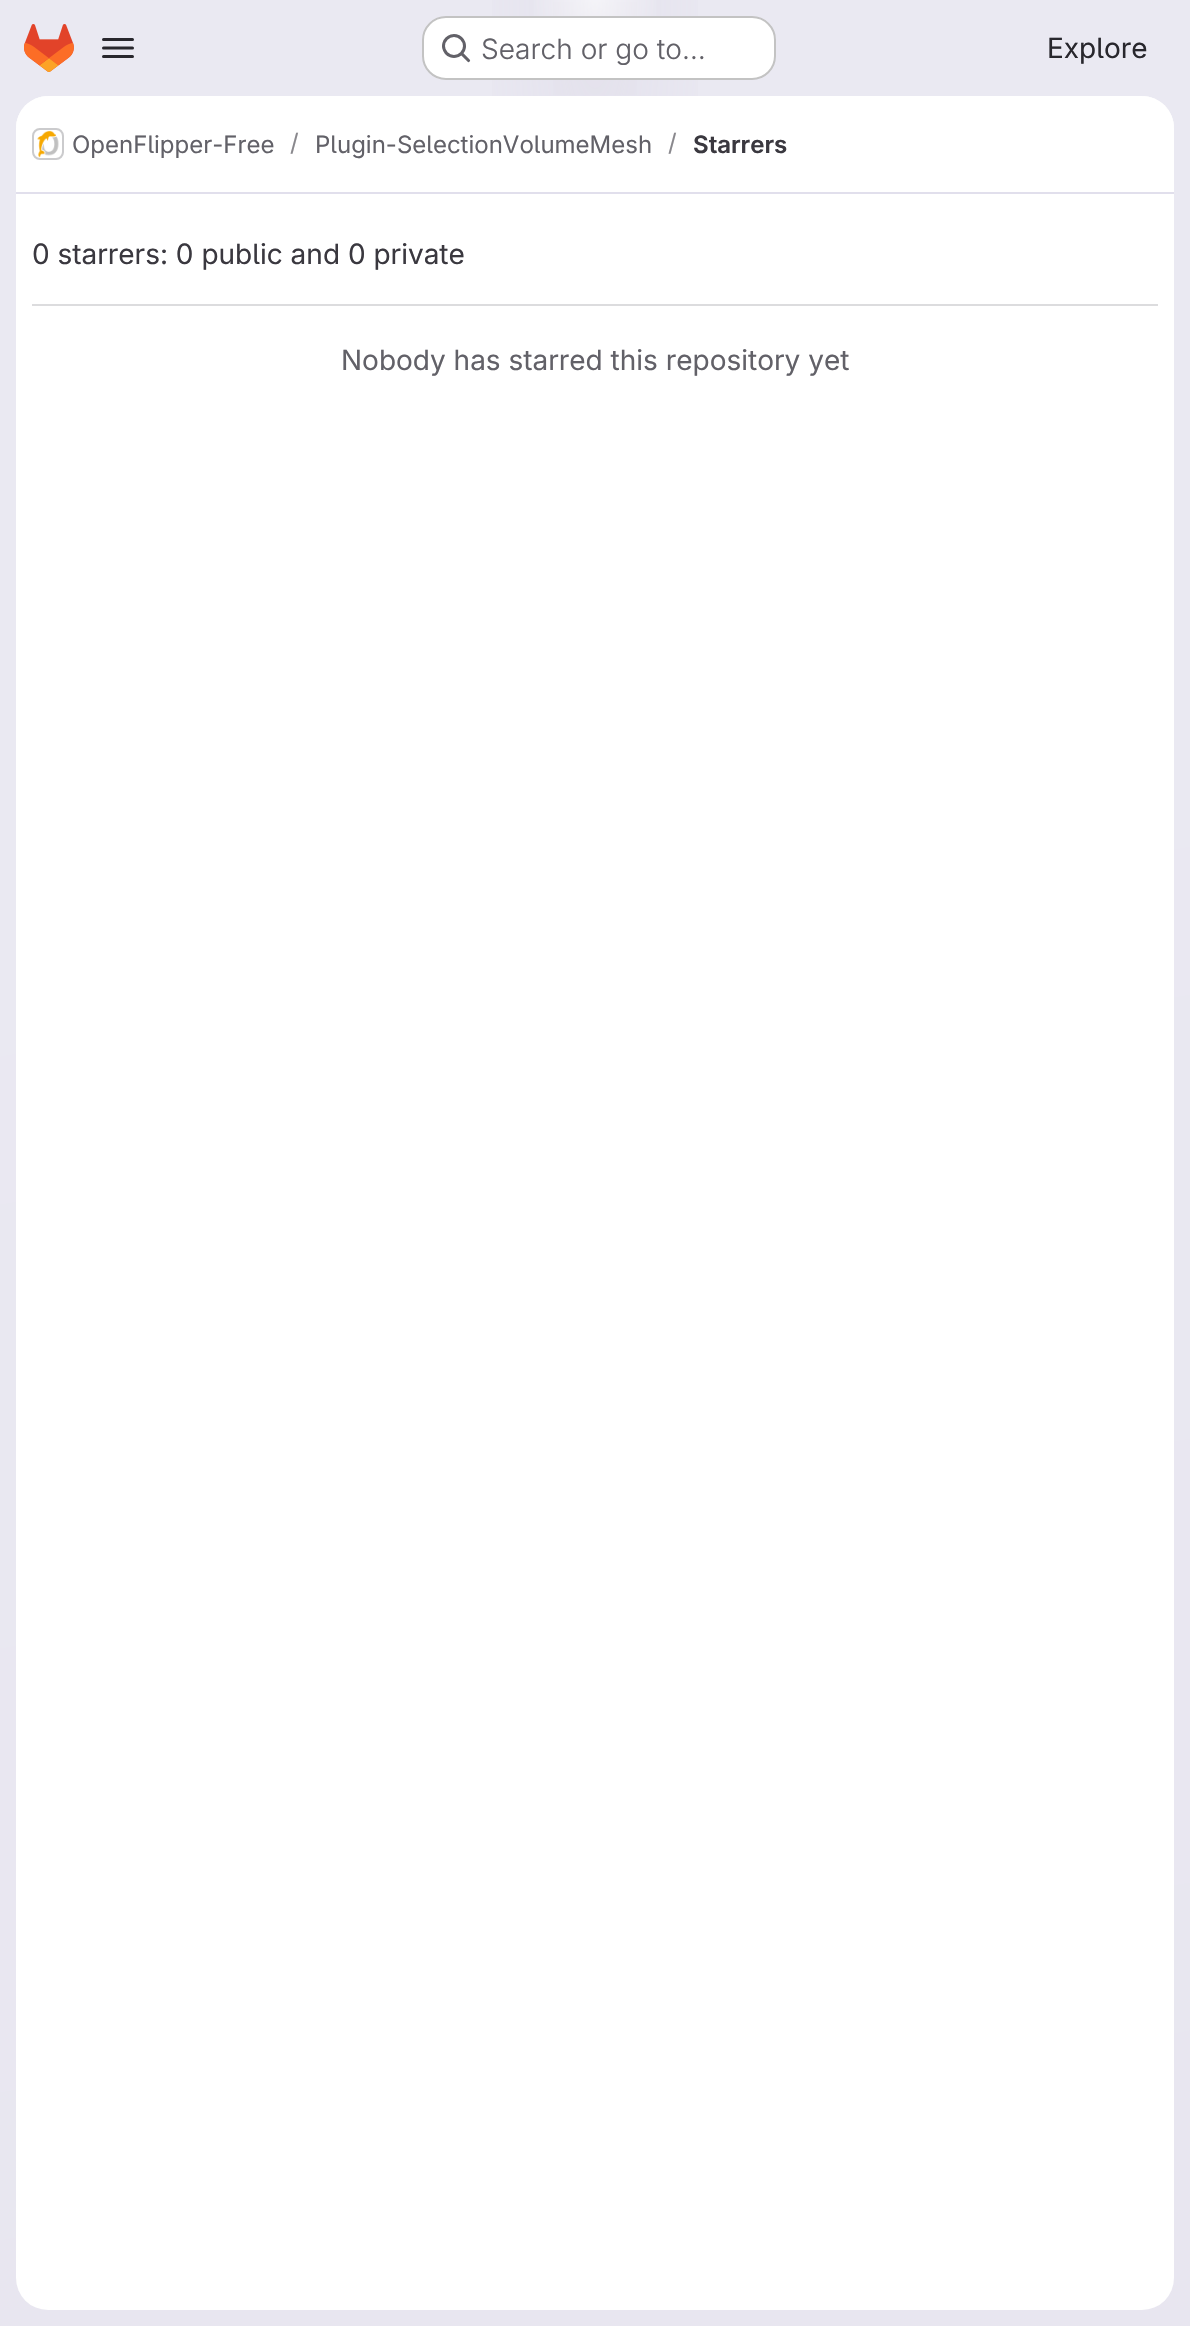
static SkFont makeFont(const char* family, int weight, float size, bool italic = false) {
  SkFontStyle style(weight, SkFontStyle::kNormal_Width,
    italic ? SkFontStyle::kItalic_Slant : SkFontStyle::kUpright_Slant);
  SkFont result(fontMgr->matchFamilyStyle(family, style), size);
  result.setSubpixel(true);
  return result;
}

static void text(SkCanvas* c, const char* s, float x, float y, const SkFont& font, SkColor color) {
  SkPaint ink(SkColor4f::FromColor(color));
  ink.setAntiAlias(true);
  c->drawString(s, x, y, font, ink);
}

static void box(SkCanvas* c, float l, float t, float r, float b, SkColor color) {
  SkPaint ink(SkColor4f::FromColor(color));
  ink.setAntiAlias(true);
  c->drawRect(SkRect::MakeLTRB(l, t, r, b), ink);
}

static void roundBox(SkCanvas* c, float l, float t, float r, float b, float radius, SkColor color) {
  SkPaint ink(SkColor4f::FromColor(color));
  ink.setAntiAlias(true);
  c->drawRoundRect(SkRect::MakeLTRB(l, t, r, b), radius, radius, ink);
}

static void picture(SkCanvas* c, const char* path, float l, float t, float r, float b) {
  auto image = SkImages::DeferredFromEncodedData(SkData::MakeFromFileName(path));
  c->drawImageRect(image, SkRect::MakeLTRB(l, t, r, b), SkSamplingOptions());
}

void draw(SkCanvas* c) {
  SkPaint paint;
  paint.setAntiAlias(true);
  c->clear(0xffffffff);
  {
    const SkColor colors[] = {0xffe8e6f0, 0xffeae9f2};
    const float stops[] = {0, 0.7f};
    const SkPoint ends[] = {{812, 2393}, {378, -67}};
    paint.setShader(SkGradientShader::MakeLinear(ends, colors, stops, 2, SkTileMode::kClamp));
    paint.setAlpha(255);
  }
  c->drawRect(SkRect::MakeLTRB(0, 0, 1190, 2326), paint);
  {
    const SkColor colors[] = {0xffe4e2ed, 0x00e4e2ed};
    const float stops[] = {0, 0.24f};
    SkMatrix m = SkMatrix::Translate(595, 0).preScale(595, 2326);
    paint.setShader(SkGradientShader::MakeRadial({0, 0}, 1, colors, stops, 2, SkTileMode::kClamp, 0, &m));
    paint.setAlpha(255);
  }
  c->drawRect(SkRect::MakeLTRB(492, 0, 698, 96), paint);
  {
    const SkColor colors[] = {0xffe4e2ec, 0x00e4e2ec};
    const float stops[] = {0, 0.17f};
    SkMatrix m = SkMatrix::Translate(595, 0).preScale(595, 2326);
    paint.setShader(SkGradientShader::MakeRadial({0, 0}, 1, colors, stops, 2, SkTileMode::kClamp, 0, &m));
    paint.setAlpha(255);
  }
  c->drawRect(SkRect::MakeLTRB(553, 2, 637, 95), paint);
  {
    const SkColor colors[] = {0x99ffffff, 0x00ffffff};
    const float stops[] = {0, 0.03f};
    paint.setShader(SkGradientShader::MakeRadial({595, 0}, 2401, colors, stops, 2, SkTileMode::kClamp));
    paint.setAlpha(255);
  }
  c->drawRect(SkRect::MakeLTRB(534, 0, 656, 16), paint);
  picture(c, "img_01.png", 24, 24, 74, 72);
  picture(c, "img_02.png", 102, 38, 134, 58);
  roundBox(c, 422, 16, 776, 80, 24, 0xffffffff);
  paint.setStyle(SkPaint::kStroke_Style);
  paint.setStrokeWidth(2);
  paint.setShader(nullptr);
  paint.setColor(0x3d050506);
  c->drawRoundRect(SkRect::MakeLTRB(423, 17, 775, 79), 23, 23, paint);
  picture(c, "img_03.png", 442, 34, 471, 63);
  SkFont face1 = makeFont("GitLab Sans", 300, 28);
  text(c, "Search or go to…", 481, 59, face1, 0xff626168);
  SkFont face2 = makeFont("GitLab Sans", 400, 28);
  text(c, "Explore", 1047, 58, face2, 0xff28272d);
  roundBox(c, 16, 96, 1174, 2310, 32, 0xffffffff);
  paint.setStyle(SkPaint::kFill_Style);
  paint.setColor(0xffffffff);
  c->drawPath(SkPathBuilder().moveTo(48, 96).lineTo(1142, 96).cubicTo(1159.5f, 96, 1174, 110.5f, 1174, 128).lineTo(1174, 194).lineTo(16, 194).lineTo(16, 128).cubicTo(16, 110.5f, 30.5f, 96, 48, 96).close().detach(), paint);
  box(c, 16, 192, 1174, 194, 0xffe1dfec);
  paint.setStyle(SkPaint::kStroke_Style);
  paint.setColor(0xffdcdcde);
  c->drawRoundRect(SkRect::MakeLTRB(33, 129, 63, 159), 7, 7, paint);
  picture(c, "img_04.png", 37, 130, 59, 158);
  paint.setColor(0x14050506);
  c->drawRoundRect(SkRect::MakeLTRB(33, 129, 63, 159), 7, 7, paint);
  SkFont face3 = makeFont("GitLab Sans", 400, 24);
  text(c, "OpenFlipper-Free", 72, 153, face3, 0xff626168);
  text(c, "/", 290, 151, face3, 0xff89888d);
  text(c, "Plugin-SelectionVolumeMesh", 315, 153, face3, 0xff626168);
  text(c, "/", 668, 151, face3, 0xff89888d);
  SkFont face4 = makeFont("GitLab Sans", 600, 24);
  text(c, "Starrers", 693, 153, face4, 0xff3a383f);
  box(c, 32, 304, 1158, 306, 0xffdcdcde);
  text(c, "0 starrers: 0 public and 0 private", 32, 264, face2, 0xff3a383f);
  text(c, "Nobody has starred this repository yet", 341, 370, face2, 0xff626168);
}
